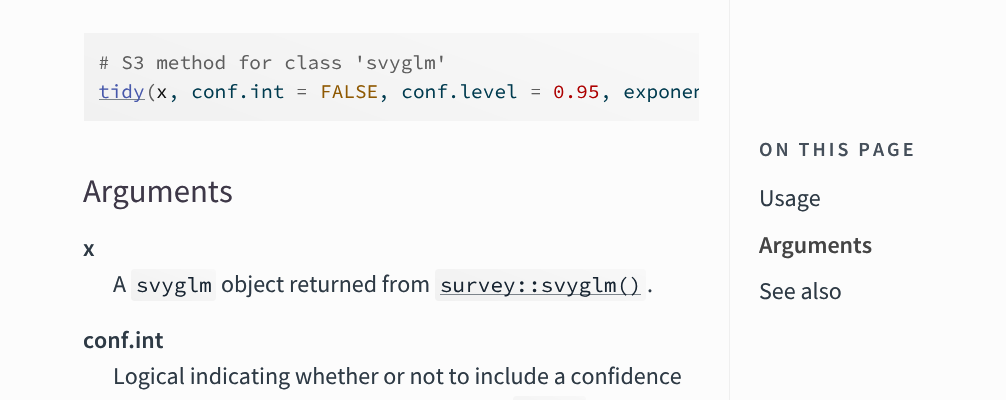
static SkFont makeFont(const char* family, int weight, float size, bool italic = false) {
  SkFontStyle style(weight, SkFontStyle::kNormal_Width,
    italic ? SkFontStyle::kItalic_Slant : SkFontStyle::kUpright_Slant);
  SkFont result(fontMgr->matchFamilyStyle(family, style), size);
  result.setSubpixel(true);
  return result;
}

static void text(SkCanvas* c, const char* s, float x, float y, const SkFont& font, SkColor color) {
  SkPaint ink(SkColor4f::FromColor(color));
  ink.setAntiAlias(true);
  c->drawString(s, x, y, font, ink);
}

static void spacedText(SkCanvas* c, const char* s, float x, float y, const SkFont& font, const SkPaint& ink, float letter, float word) {
  std::vector<SkGlyphID> glyphs(font.countText(s, strlen(s), SkTextEncoding::kUTF8));
  std::vector<float> xs(glyphs.size());
  font.textToGlyphs(s, strlen(s), SkTextEncoding::kUTF8, glyphs);
  font.getXPos(glyphs, xs, x);
  float extra = 0;
  for (size_t i = 0; i < glyphs.size(); i++) {
    xs[i] += extra;
    extra += letter + word * (glyphs[i] == font.unicharToGlyph(' '));
  }
  c->drawTextBlob(SkTextBlob::MakeFromPosHGlyphs(glyphs, xs, y, font), 0, 0, ink);
}

static void box(SkCanvas* c, float l, float t, float r, float b, SkColor color) {
  SkPaint ink(SkColor4f::FromColor(color));
  ink.setAntiAlias(true);
  c->drawRect(SkRect::MakeLTRB(l, t, r, b), ink);
}

void draw(SkCanvas* c) {
  SkPaint paint;
  paint.setAntiAlias(true);
  c->clear(0xfffcfcfc);
  {
    const SkColor colors[] = {0xfff8f8f8, 0xfff1f1f1};
    const float stops[] = {0, 1};
    const SkPoint ends[] = {{441, -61}, {341, 215}};
    paint.setShader(SkGradientShader::MakeLinear(ends, colors, stops, 2, SkTileMode::kClamp));
    paint.setAlpha(255);
  }
  c->drawRect(SkRect::MakeLTRB(84, 33, 699, 121), paint);
  SkFont face1 = makeFont("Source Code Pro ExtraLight", 200, 19.4f);
  text(c, "# S3 method for class 'svyglm'", 98, 69, face1, 0xff5e5e5e);
  box(c, 99, 99, 145, 100, 0xff7c848a);
  text(c, "tidy", 98, 98, face1, 0xff4758ab);
  text(c, "(", 145, 98, face1, 0xff5e5e5e);
  text(c, "x", 156, 98, face1, 0xff111111);
  text(c, ", conf.int", 168, 98, face1, 0xff003b4f);
  text(c, "=", 296, 98, face1, 0xff5e5e5e);
  text(c, "FALSE", 320, 98, face1, 0xff8f5902);
  text(c, ", conf.level", 378, 98, face1, 0xff003b4f);
  text(c, "=", 530, 98, face1, 0xff5e5e5e);
  text(c, "0.95", 553, 98, face1, 0xffad0000);
  c->save();
  c->clipRect(SkRect::MakeLTRB(84, 33, 699, 121));
  text(c, ", exponen", 600, 98, face1, 0xff003b4f);
  c->restore();
  SkFont face2 = makeFont("Source Sans Pro", 400, 32.75f);
  text(c, "Arguments", 83, 202, face2, 0xff3e3848);
  SkFont face3 = makeFont("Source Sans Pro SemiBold", 600, 24);
  text(c, "x", 83, 256, face3, 0xff2e3a45);
  SkFont face4 = makeFont("Source Sans Pro", 400, 24);
  text(c, "A", 113, 292, face4, 0xff2e3a45);
  {
    const SkColor colors[] = {0xfff8f8f8, 0xfff1f1f1};
    const float stops[] = {0, 1};
    const SkPoint ends[] = {{184, 257}, {164, 313}};
    paint.setShader(SkGradientShader::MakeLinear(ends, colors, stops, 2, SkTileMode::kClamp));
    paint.setAlpha(255);
  }
  c->drawRoundRect(SkRect::MakeLTRB(131, 269, 216, 301), 4, 4, paint);
  SkFont face5 = makeFont("Source Code Pro ExtraLight", 200, 21);
  text(c, "svyglm", 136, 292, face5, 0xff172431);
  text(c, "object returned from", 221, 292, face4, 0xff2e3a45);
  {
    const SkColor colors[] = {0xfff8f8f8, 0xfff1f1f1};
    const float stops[] = {0, 1};
    const SkPoint ends[] = {{558, 237}, {523, 333}};
    paint.setShader(SkGradientShader::MakeLinear(ends, colors, stops, 2, SkTileMode::kClamp));
    paint.setAlpha(255);
  }
  c->drawRoundRect(SkRect::MakeLTRB(435, 269, 646, 301), 4, 4, paint);
  {
    const SkColor colors[] = {0xff7f868d, 0xff7c838a};
    const float stops[] = {0, 1};
    const SkPoint ends[] = {{558, 237}, {523, 333}};
    paint.setShader(SkGradientShader::MakeLinear(ends, colors, stops, 2, SkTileMode::kClamp));
    paint.setAlpha(255);
  }
  c->drawRect(SkRect::MakeLTRB(440, 294, 641, 295), paint);
  text(c, "survey::svyglm()", 440, 292, face5, 0xff172431);
  text(c, ".", 647, 292, face4, 0xff2e3a45);
  text(c, "conf.int", 83, 348, face3, 0xff2e3a45);
  text(c, "Logical indicating whether or not to include a confidence", 113, 384, face4, 0xff2e3a45);
  {
    const SkColor colors[] = {0xfff8f8f8, 0xfff1f1f1};
    const float stops[] = {0, 1};
    const SkPoint ends[] = {{559, 386}, {540, 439}};
    paint.setShader(SkGradientShader::MakeLinear(ends, colors, stops, 2, SkTileMode::kClamp));
    paint.setAlpha(255);
  }
  c->drawRoundRect(SkRect::MakeLTRB(513, 396, 586, 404), 4, 4, paint);
  box(c, 729, 0, 730, 400, 0xffefefef);
  SkFont face6 = makeFont("Source Sans Pro SemiBold", 600, 20);
  paint.setShader(nullptr);
  paint.setColor(0xff454f5a);
  spacedText(c, "ON THIS PAGE", 759, 156, face6, paint, 3, 0);
  text(c, "Usage", 759, 206, face4, 0xff2e3a45);
  text(c, "Arguments", 759, 253, face3, 0xff444444);
  text(c, "See also", 759, 299, face4, 0xff2e3a45);
}
